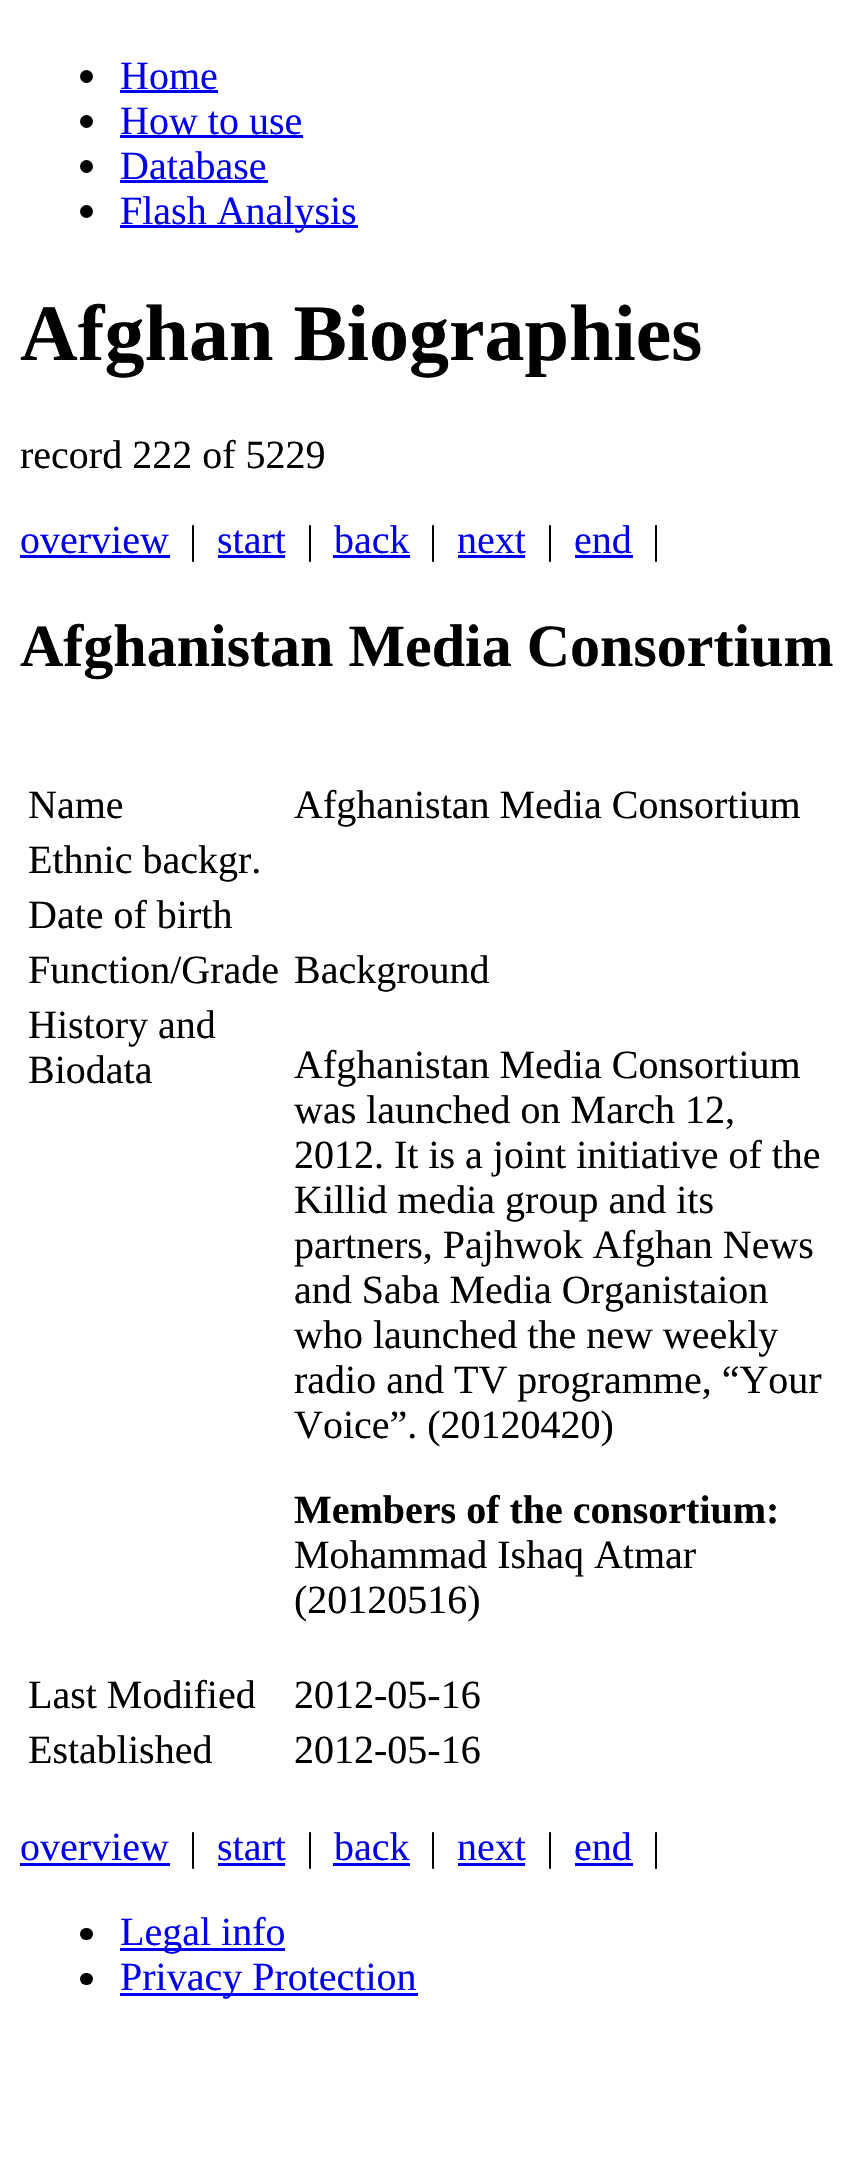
static SkFont makeFont(const char* family, int weight, float size, bool italic = false) {
  SkFontStyle style(weight, SkFontStyle::kNormal_Width,
    italic ? SkFontStyle::kItalic_Slant : SkFontStyle::kUpright_Slant);
  SkFont result(fontMgr->matchFamilyStyle(family, style), size);
  result.setSubpixel(true);
  return result;
}

static void text(SkCanvas* c, const char* s, float x, float y, const SkFont& font, SkColor color) {
  SkPaint ink(SkColor4f::FromColor(color));
  ink.setAntiAlias(true);
  c->drawString(s, x, y, font, ink);
}

static void box(SkCanvas* c, float l, float t, float r, float b, SkColor color) {
  SkPaint ink(SkColor4f::FromColor(color));
  ink.setAntiAlias(true);
  c->drawRect(SkRect::MakeLTRB(l, t, r, b), ink);
}

static void roundBox(SkCanvas* c, float l, float t, float r, float b, float radius, SkColor color) {
  SkPaint ink(SkColor4f::FromColor(color));
  ink.setAntiAlias(true);
  c->drawRoundRect(SkRect::MakeLTRB(l, t, r, b), radius, radius, ink);
}

void draw(SkCanvas* c) {
  SkPaint paint;
  paint.setAntiAlias(true);
  c->clear(0xffffffff);
  paint.setColor(0xff000000);
  c->drawCircle(86.5f, 76.5f, 6.5f, paint);
  SkFont face1 = makeFont("Liberation Serif", 400, 40);
  text(c, "Home", 120, 89, face1, 0xff0000ee);
  box(c, 120, 90, 218, 93, 0xff0000ee);
  c->drawCircle(86.5f, 121.5f, 6.5f, paint);
  text(c, "How to use", 120, 134, face1, 0xff0000ee);
  box(c, 120, 135, 303, 138, 0xff0000ee);
  c->drawCircle(86.5f, 166.5f, 6.5f, paint);
  text(c, "Database", 120, 179, face1, 0xff0000ee);
  box(c, 120, 180, 268, 183, 0xff0000ee);
  c->drawCircle(86.5f, 211.5f, 6.5f, paint);
  box(c, 120, 225, 358, 228, 0xff0000ee);
  text(c, "Flash Analysis", 120, 224, face1, 0xff0000ee);
  SkFont face2 = makeFont("Liberation Serif", 700, 80);
  text(c, "Afghan Biographies", 20, 360, face2, 0xff000000);
  text(c, "record 222 of 5229", 20, 468, face1, 0xff000000);
  text(c, "overview", 20, 553, face1, 0xff0000ee);
  box(c, 20, 555, 170, 558, 0xff0000ee);
  text(c, "|", 189, 553, face1, 0xff000000);
  text(c, "start", 217, 553, face1, 0xff0000ee);
  box(c, 218, 555, 285, 558, 0xff0000ee);
  text(c, "|", 306, 553, face1, 0xff000000);
  text(c, "back", 334, 553, face1, 0xff0000ee);
  box(c, 333, 555, 410, 558, 0xff0000ee);
  text(c, "|", 429, 553, face1, 0xff000000);
  text(c, "next", 457, 553, face1, 0xff0000ee);
  box(c, 458, 555, 525, 558, 0xff0000ee);
  text(c, "|", 546, 553, face1, 0xff000000);
  text(c, "end", 574, 553, face1, 0xff0000ee);
  box(c, 575, 555, 633, 558, 0xff0000ee);
  text(c, "|", 652, 553, face1, 0xff000000);
  SkFont face3 = makeFont("Liberation Serif", 700, 60);
  text(c, "Afghanistan Media Consortium", 20, 666, face3, 0xff000000);
  text(c, "Name", 28, 818, face1, 0xff000000);
  text(c, "Afghanistan Media Consortium", 294, 818, face1, 0xff000000);
  text(c, "Ethnic backgr.", 28, 873, face1, 0xff000000);
  text(c, "Date of birth", 28, 928, face1, 0xff000000);
  text(c, "Function/Grade", 28, 983, face1, 0xff000000);
  text(c, "Background", 294, 983, face1, 0xff000000);
  text(c, "History and", 28, 1038, face1, 0xff000000);
  text(c, "Biodata", 28, 1083, face1, 0xff000000);
  text(c, "Afghanistan Media Consortium", 294, 1078, face1, 0xff000000);
  text(c, "was launched on March 12,", 294, 1123, face1, 0xff000000);
  text(c, "2012. It is a joint initiative of the", 294, 1168, face1, 0xff000000);
  text(c, "Killid media group and its", 294, 1213, face1, 0xff000000);
  text(c, "partners, Pajhwok Afghan News", 294, 1258, face1, 0xff000000);
  text(c, "and Saba Media Organistaion", 294, 1303, face1, 0xff000000);
  text(c, "who launched the new weekly", 294, 1348, face1, 0xff000000);
  text(c, "radio and TV programme, “Your", 294, 1393, face1, 0xff000000);
  text(c, "Voice”. (20120420)", 294, 1438, face1, 0xff000000);
  SkFont face4 = makeFont("Liberation Serif", 700, 40);
  text(c, "Members of the consortium:", 294, 1523, face4, 0xff000000);
  text(c, "Mohammad Ishaq Atmar", 294, 1568, face1, 0xff000000);
  text(c, "(20120516)", 294, 1613, face1, 0xff000000);
  text(c, "Last Modified", 28, 1708, face1, 0xff000000);
  text(c, "2012-05-16", 294, 1708, face1, 0xff000000);
  text(c, "Established", 28, 1763, face1, 0xff000000);
  text(c, "2012-05-16", 294, 1763, face1, 0xff000000);
  text(c, "overview", 20, 1860, face1, 0xff0000ee);
  box(c, 20, 1863, 170, 1866, 0xff0000ee);
  text(c, "|", 189, 1860, face1, 0xff000000);
  text(c, "start", 217, 1860, face1, 0xff0000ee);
  box(c, 218, 1863, 285, 1866, 0xff0000ee);
  text(c, "|", 306, 1860, face1, 0xff000000);
  text(c, "back", 334, 1860, face1, 0xff0000ee);
  box(c, 333, 1863, 410, 1866, 0xff0000ee);
  text(c, "|", 429, 1860, face1, 0xff000000);
  text(c, "next", 457, 1860, face1, 0xff0000ee);
  box(c, 458, 1863, 525, 1866, 0xff0000ee);
  text(c, "|", 546, 1860, face1, 0xff000000);
  text(c, "end", 574, 1860, face1, 0xff0000ee);
  box(c, 575, 1863, 633, 1866, 0xff0000ee);
  text(c, "|", 652, 1860, face1, 0xff000000);
  roundBox(c, 80, 1928, 93, 1940, 6, 0xff000000);
  box(c, 120, 1948, 285, 1951, 0xff0000ee);
  text(c, "Legal info", 120, 1945, face1, 0xff0000ee);
  roundBox(c, 80, 1973, 93, 1985, 6, 0xff000000);
  box(c, 120, 1993, 418, 1996, 0xff0000ee);
  text(c, "Privacy Protection", 120, 1990, face1, 0xff0000ee);
}
